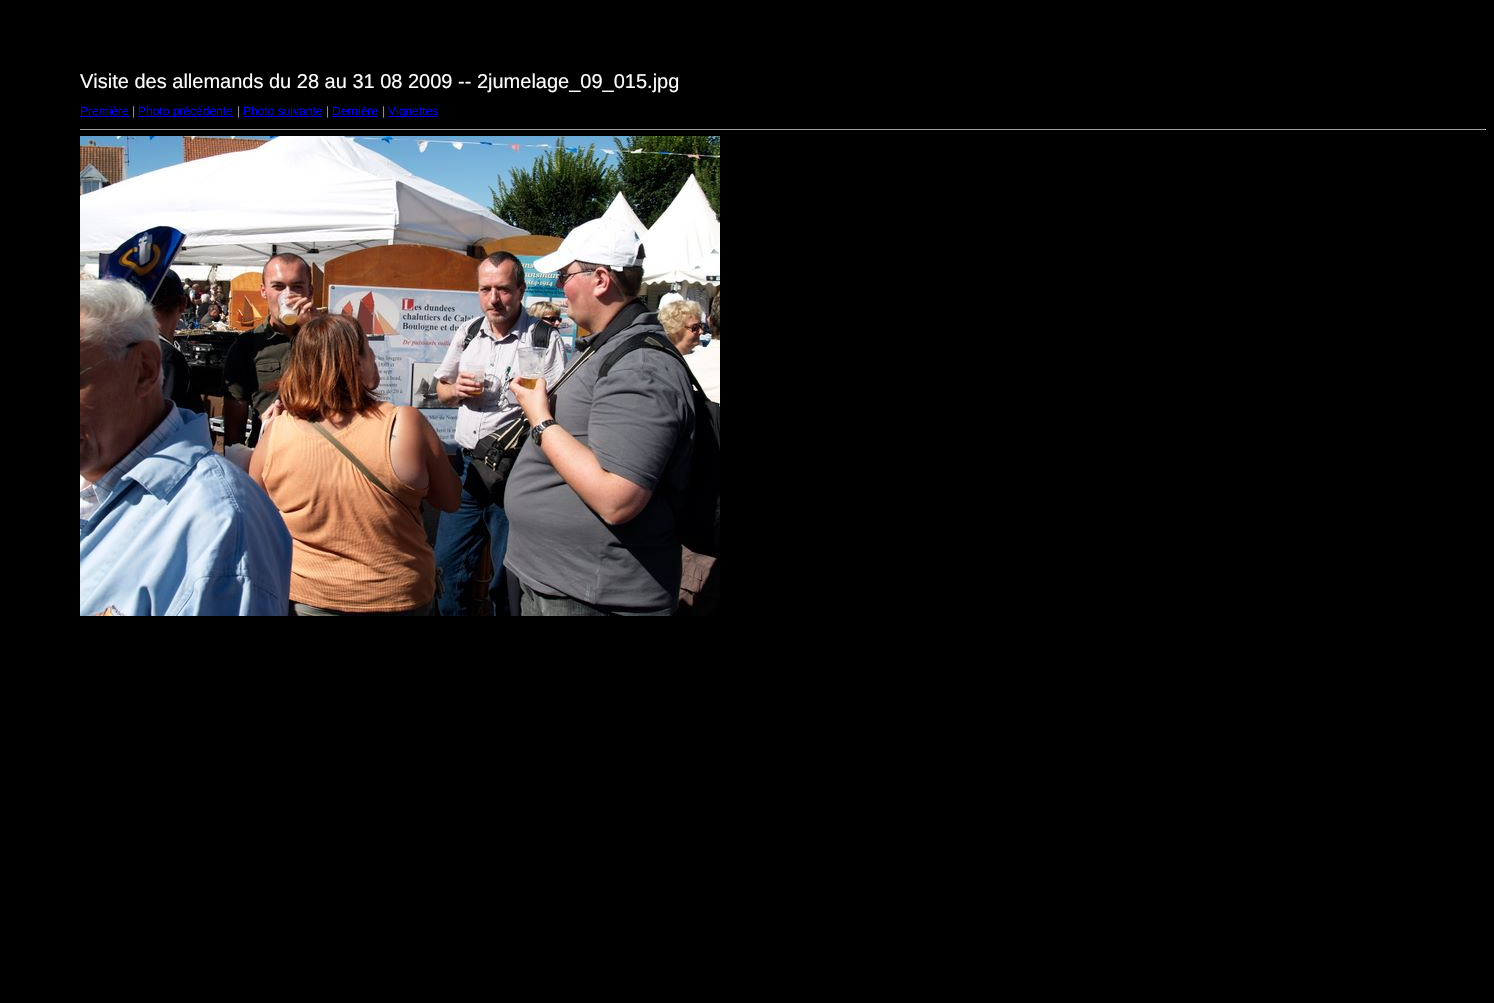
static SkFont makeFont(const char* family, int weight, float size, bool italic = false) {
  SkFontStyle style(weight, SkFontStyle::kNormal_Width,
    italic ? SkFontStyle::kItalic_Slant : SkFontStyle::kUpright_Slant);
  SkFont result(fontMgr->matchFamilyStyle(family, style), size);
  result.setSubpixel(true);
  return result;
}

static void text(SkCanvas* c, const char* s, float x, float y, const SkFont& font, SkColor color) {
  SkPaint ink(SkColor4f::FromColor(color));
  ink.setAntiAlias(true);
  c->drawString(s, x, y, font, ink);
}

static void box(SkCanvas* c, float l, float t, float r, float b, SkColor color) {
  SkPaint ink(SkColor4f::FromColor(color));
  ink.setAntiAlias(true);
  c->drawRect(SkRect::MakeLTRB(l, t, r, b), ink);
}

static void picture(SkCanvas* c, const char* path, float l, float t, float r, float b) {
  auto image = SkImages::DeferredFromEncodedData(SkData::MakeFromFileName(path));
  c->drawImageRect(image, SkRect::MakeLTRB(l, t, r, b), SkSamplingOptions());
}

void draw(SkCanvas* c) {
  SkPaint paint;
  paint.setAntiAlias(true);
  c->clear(0xff000000);
  SkFont face1 = makeFont("Liberation Sans", 400, 20);
  text(c, "Visite des allemands du 28 au 31 08 2009 -- 2jumelage_09_015.jpg", 80, 88, face1, 0xffffffff);
  SkFont face2 = makeFont("Liberation Sans", 400, 12);
  text(c, "Première", 80, 115, face2, 0xff0000ee);
  box(c, 80, 116, 129, 117, 0xff0000ee);
  text(c, "|", 132, 115, face2, 0xff999999);
  box(c, 138, 116, 233, 117, 0xff0000ee);
  text(c, "Photo précédente", 138, 115, face2, 0xff0000ee);
  text(c, "|", 237, 115, face2, 0xff999999);
  text(c, "Photo suivante", 243, 115, face2, 0xff0000ee);
  box(c, 243, 116, 322, 117, 0xff0000ee);
  text(c, "|", 326, 115, face2, 0xff999999);
  text(c, "Dernière", 332, 115, face2, 0xff0000ee);
  box(c, 332, 116, 378, 117, 0xff0000ee);
  text(c, "|", 382, 115, face2, 0xff999999);
  box(c, 388, 116, 438, 117, 0xff0000ee);
  text(c, "Vignettes", 388, 115, face2, 0xff0000ee);
  box(c, 80, 129, 1486, 130, 0xff9f9f9f);
  box(c, 1485, 129, 1486, 130, 0xffeeeeee);
  picture(c, "img_01.png", 80, 136, 720, 616);
}
